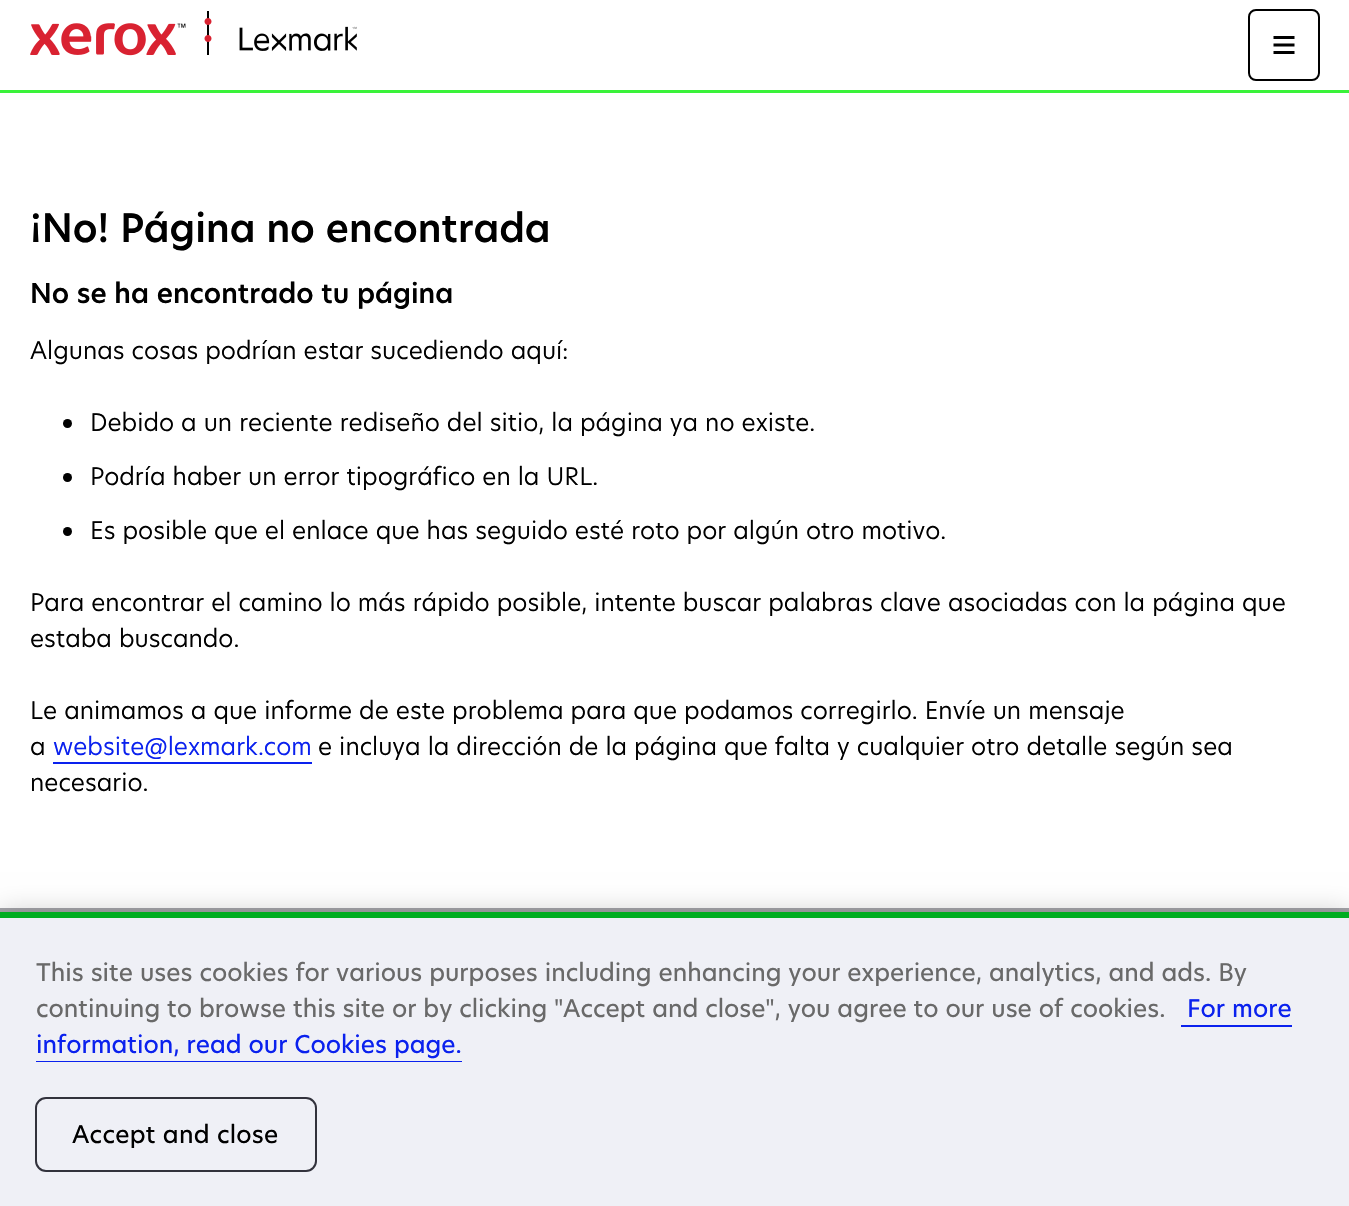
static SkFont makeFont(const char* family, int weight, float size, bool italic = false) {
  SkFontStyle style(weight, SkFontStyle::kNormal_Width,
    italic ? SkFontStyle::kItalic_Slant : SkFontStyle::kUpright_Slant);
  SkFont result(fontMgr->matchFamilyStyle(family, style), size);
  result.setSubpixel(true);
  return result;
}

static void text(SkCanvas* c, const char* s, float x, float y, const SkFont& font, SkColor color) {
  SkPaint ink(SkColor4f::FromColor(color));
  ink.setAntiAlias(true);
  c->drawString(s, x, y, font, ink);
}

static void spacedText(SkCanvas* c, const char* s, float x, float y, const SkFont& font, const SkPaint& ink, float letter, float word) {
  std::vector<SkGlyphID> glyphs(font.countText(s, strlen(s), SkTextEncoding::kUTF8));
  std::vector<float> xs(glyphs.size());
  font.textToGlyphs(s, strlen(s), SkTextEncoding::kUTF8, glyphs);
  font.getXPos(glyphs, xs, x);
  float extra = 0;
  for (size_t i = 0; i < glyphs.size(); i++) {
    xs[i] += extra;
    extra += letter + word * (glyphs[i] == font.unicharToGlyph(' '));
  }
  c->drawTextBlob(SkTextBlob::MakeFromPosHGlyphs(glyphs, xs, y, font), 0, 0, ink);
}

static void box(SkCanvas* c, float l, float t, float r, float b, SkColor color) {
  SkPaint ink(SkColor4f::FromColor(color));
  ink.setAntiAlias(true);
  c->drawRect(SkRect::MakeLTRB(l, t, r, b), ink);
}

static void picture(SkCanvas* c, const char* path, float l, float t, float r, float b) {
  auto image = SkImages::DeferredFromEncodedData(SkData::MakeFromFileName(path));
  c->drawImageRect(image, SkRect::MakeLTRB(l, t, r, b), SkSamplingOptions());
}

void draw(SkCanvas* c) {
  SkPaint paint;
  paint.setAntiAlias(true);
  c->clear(0xffffffff);
  box(c, 0, 90, 1349, 93, 0xff3af23a);
  picture(c, "img_01.png", 30, 11, 357, 56);
  paint.setStyle(SkPaint::kStroke_Style);
  paint.setStrokeWidth(2);
  paint.setColor(0xff000000);
  c->drawRoundRect(SkRect::MakeLTRB(1249, 10, 1319, 80), 7, 7, paint);
  picture(c, "img_02.png", 1273, 36, 1295, 54);
  SkFont face1 = makeFont("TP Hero", 600, 38.5f);
  text(c, "¡No! Página no encontrada", 30, 242, face1, 0xff000000);
  SkFont face2 = makeFont("TP Hero", 600, 27);
  text(c, "No se ha encontrado tu página", 30, 303, face2, 0xff000000);
  SkFont face3 = makeFont("TP Hero", 400, 24);
  text(c, "Algunas cosas podrían estar sucediendo aquí:", 30, 359, face3, 0xff000000);
  paint.setStyle(SkPaint::kFill_Style);
  c->drawCircle(67.5f, 423.5f, 4.5f, paint);
  text(c, "Debido a un reciente rediseño del sitio, la página ya no existe.", 90, 431, face3, 0xff000000);
  c->drawCircle(67.5f, 477.5f, 4.5f, paint);
  text(c, "Podría haber un error tipográfico en la URL.", 90, 485, face3, 0xff000000);
  c->drawCircle(67.5f, 531.5f, 4.5f, paint);
  text(c, "Es posible que el enlace que has seguido esté roto por algún otro motivo.", 90, 539, face3, 0xff000000);
  text(c, "Para encontrar el camino lo más rápido posible, intente buscar palabras clave asociadas con la página que", 30, 611, face3, 0xff000000);
  text(c, "estaba buscando.", 30, 647, face3, 0xff000000);
  text(c, "Le animamos a que informe de este problema para que podamos corregirlo. Envíe un mensaje", 30, 719, face3, 0xff000000);
  text(c, "a", 30, 755, face3, 0xff000000);
  text(c, "website@lexmark.com", 53, 755, face3, 0xff0a21ee);
  box(c, 53, 762, 312, 764, 0xff0a21ee);
  text(c, "e incluya la dirección de la página que falta y cualquier otro detalle según sea", 318, 755, face3, 0xff000000);
  text(c, "necesario.", 30, 791, face3, 0xff000000);
  box(c, 0, 908, 1349, 912, 0xffa5a5aa);
  paint.setColor(0x33000000);
  paint.setMaskFilter(SkMaskFilter::MakeBlur(kNormal_SkBlurStyle, 13.5f));
  c->drawRect(SkRect::MakeLTRB(0, 912, 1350, 1206), paint);
  paint.setMaskFilter(nullptr);
  box(c, 0, 918, 1349, 1206, 0xffeff0f6);
  box(c, 0, 912, 1349, 918, 0xff00ad21);
  SkFont face4 = makeFont("TP Hero", 500, 24);
  text(c, "This site uses cookies for various purposes including enhancing your experience, analytics, and ads. By", 36, 981, face4, 0xff696969);
  text(c, "continuing to browse this site or by clicking \"Accept and close\", you agree to our use of cookies.", 36, 1017, face4, 0xff696969);
  text(c, "For more", 1187, 1017, face4, 0xff0a21ee);
  box(c, 1181, 1025, 1292, 1027, 0xff0a21ee);
  text(c, "information, read our Cookies page.", 36, 1053, face4, 0xff0a21ee);
  box(c, 36, 1061, 462, 1062, 0xff0a21ee);
  paint.setStyle(SkPaint::kStroke_Style);
  paint.setColor(0xff32323c);
  c->drawRoundRect(SkRect::MakeLTRB(36, 1098, 316, 1171), 10, 10, paint);
  paint.setStyle(SkPaint::kFill_Style);
  paint.setColor(0xff000000);
  spacedText(c, "Accept and close", 72, 1143, face4, paint, 0.25f, 0);
}
